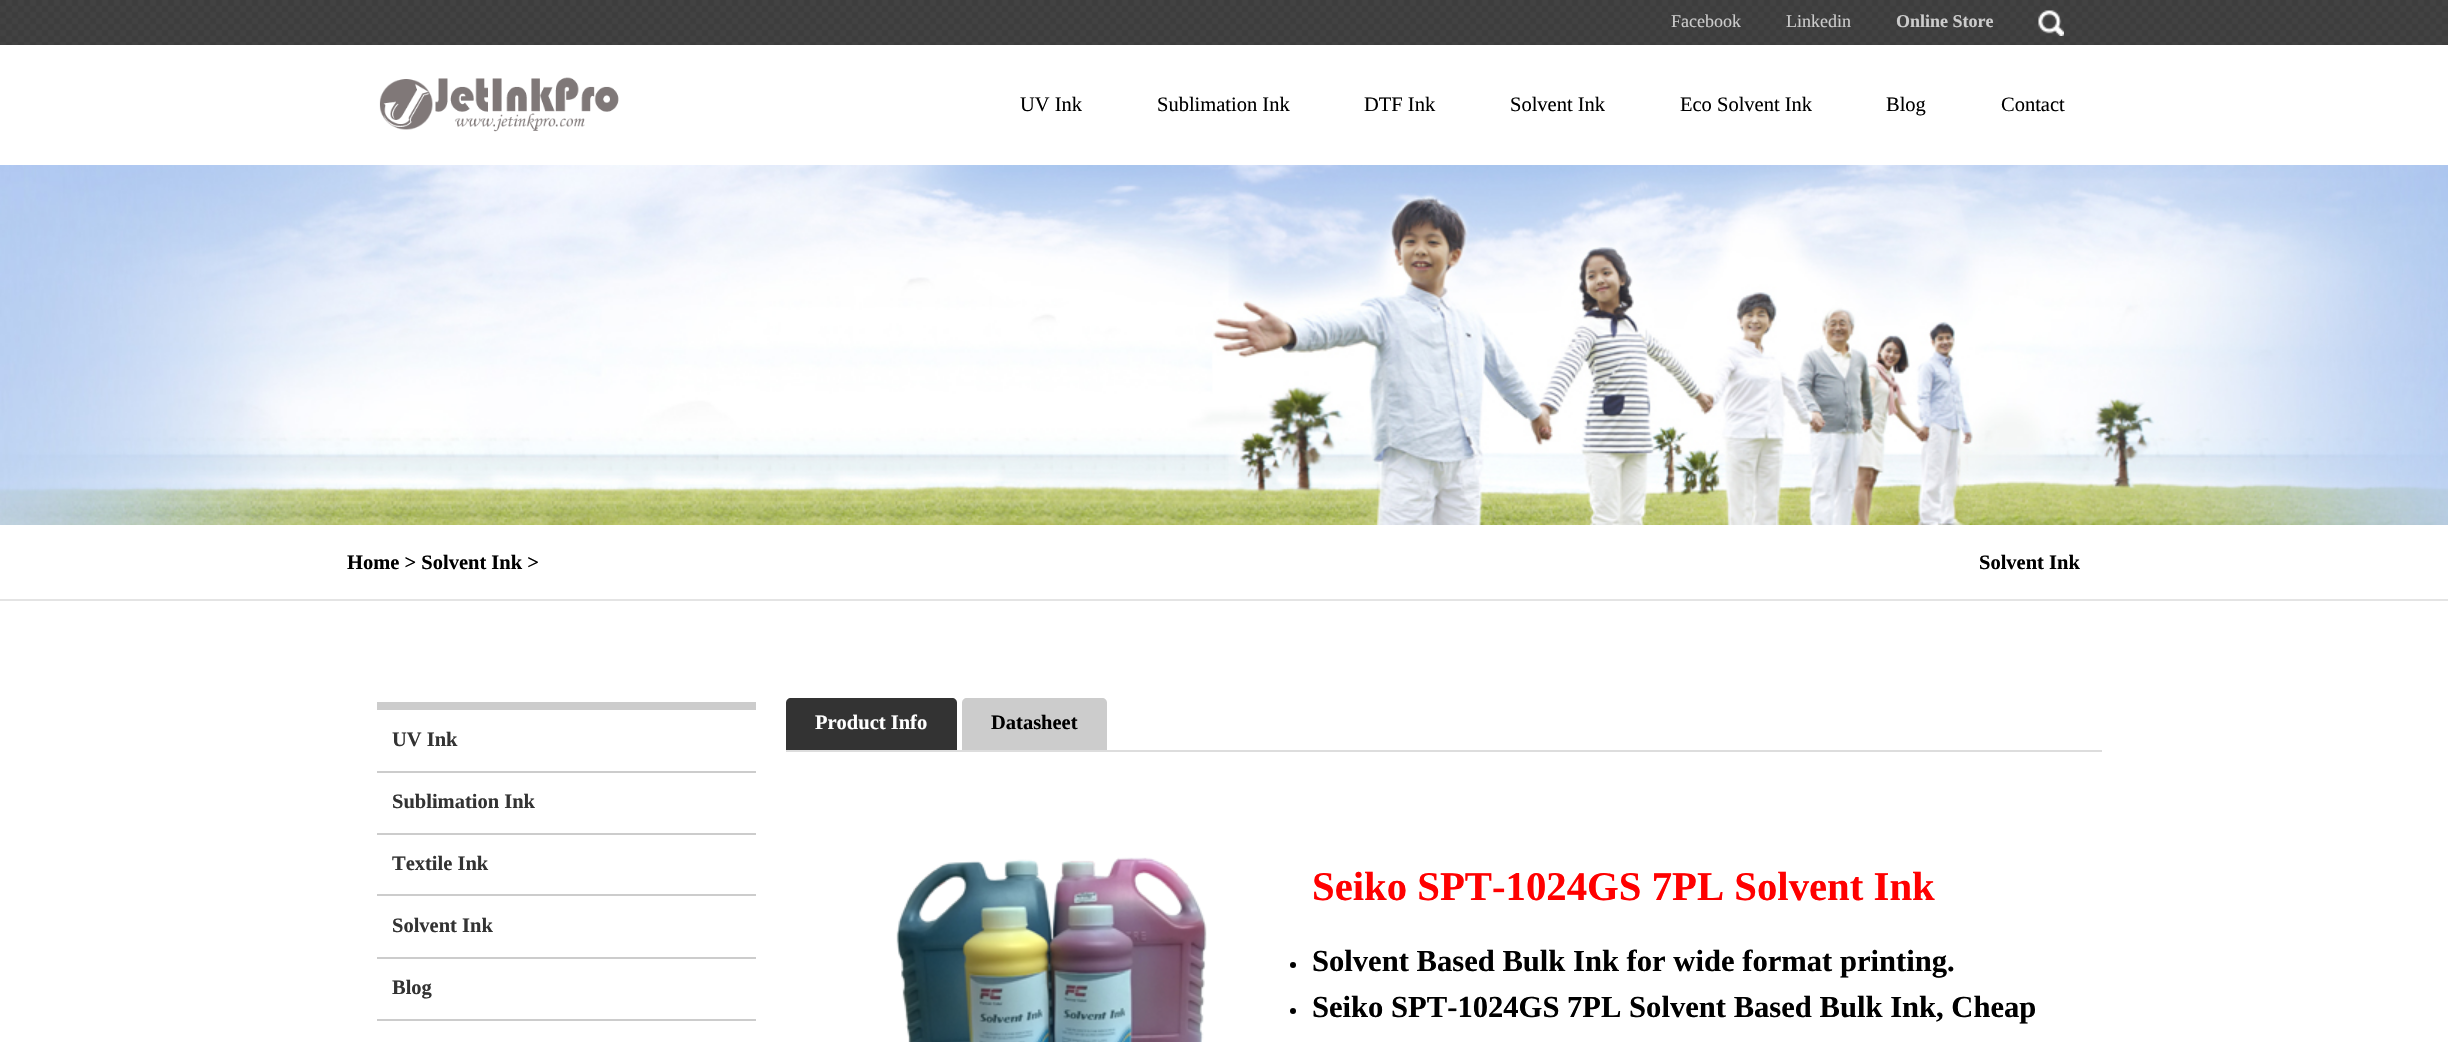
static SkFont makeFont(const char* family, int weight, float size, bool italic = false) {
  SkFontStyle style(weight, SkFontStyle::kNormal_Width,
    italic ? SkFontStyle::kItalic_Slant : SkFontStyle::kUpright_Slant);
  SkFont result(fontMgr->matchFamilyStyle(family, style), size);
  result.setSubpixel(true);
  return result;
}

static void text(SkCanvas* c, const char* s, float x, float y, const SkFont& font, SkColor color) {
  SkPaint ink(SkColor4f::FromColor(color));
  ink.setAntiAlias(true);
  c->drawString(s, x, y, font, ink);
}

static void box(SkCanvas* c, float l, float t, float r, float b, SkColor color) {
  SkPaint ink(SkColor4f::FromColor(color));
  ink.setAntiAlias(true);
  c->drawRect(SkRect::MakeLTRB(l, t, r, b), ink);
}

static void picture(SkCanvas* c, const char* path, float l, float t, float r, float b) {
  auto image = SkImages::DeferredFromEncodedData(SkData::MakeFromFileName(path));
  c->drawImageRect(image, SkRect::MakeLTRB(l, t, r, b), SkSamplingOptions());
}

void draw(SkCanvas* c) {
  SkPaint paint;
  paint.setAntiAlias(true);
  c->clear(0xffffffff);
  picture(c, "img_01.png", 0, 0, 2448, 45);
  SkFont face1 = makeFont("Liberation Serif", 400, 18);
  text(c, "Facebook", 1671, 27, face1, 0xffcccccc);
  text(c, "Linkedin", 1786, 27, face1, 0xffcccccc);
  SkFont face2 = makeFont("Liberation Serif", 700, 18);
  text(c, "Online Store", 1896, 27, face2, 0xffcccccc);
  picture(c, "img_02.png", 2038, 10, 2064, 36);
  picture(c, "img_03.png", 379, 77, 619, 132);
  SkFont face3 = makeFont("Liberation Serif", 400, 20.5f);
  text(c, "UV Ink", 1020, 111, face3, 0xff000000);
  text(c, "Sublimation Ink", 1157, 111, face3, 0xff000000);
  text(c, "DTF Ink", 1364, 111, face3, 0xff000000);
  text(c, "Solvent Ink", 1510, 111, face3, 0xff000000);
  text(c, "Eco Solvent Ink", 1680, 111, face3, 0xff000000);
  text(c, "Blog", 1886, 111, face3, 0xff000000);
  text(c, "Contact", 2001, 111, face3, 0xff000000);
  picture(c, "img_04.png", 0, 165, 2448, 525);
  box(c, 0, 599, 2448, 601, 0xffe4e4e4);
  SkFont face4 = makeFont("Liberation Serif", 700, 20.5f);
  text(c, "Home > Solvent Ink >", 347, 569, face4, 0xff000000);
  text(c, "Solvent Ink", 1979, 569, face4, 0xff000000);
  box(c, 377, 702, 756, 710, 0xffcccccc);
  box(c, 377, 771, 756, 773, 0xffcccccc);
  text(c, "UV Ink", 392, 746, face4, 0xff333333);
  box(c, 377, 833, 756, 835, 0xffcccccc);
  text(c, "Sublimation Ink", 392, 808, face4, 0xff333333);
  box(c, 377, 894, 756, 896, 0xffcccccc);
  text(c, "Textile Ink", 392, 870, face4, 0xff333333);
  box(c, 377, 957, 756, 959, 0xffcccccc);
  text(c, "Solvent Ink", 392, 932, face4, 0xff333333);
  box(c, 377, 1019, 756, 1021, 0xffcccccc);
  text(c, "Blog", 392, 994, face4, 0xff333333);
  box(c, 786, 750, 2102, 752, 0xffdddddd);
  paint.setColor(0xff333333);
  c->drawPath(SkPathBuilder().moveTo(791, 698).lineTo(952, 698).cubicTo(955, 698, 957, 700, 957, 703).lineTo(957, 750).lineTo(786, 750).lineTo(786, 703).cubicTo(786, 700, 788, 698, 791, 698).close().detach(), paint);
  text(c, "Product Info", 815, 729, face4, 0xffffffff);
  paint.setColor(0xffcccccc);
  c->drawPath(SkPathBuilder().moveTo(967, 698).lineTo(1102, 698).cubicTo(1105, 698, 1107, 700, 1107, 703).lineTo(1107, 750).lineTo(962, 750).lineTo(962, 703).cubicTo(962, 700, 964, 698, 967, 698).close().detach(), paint);
  text(c, "Datasheet", 991, 729, face4, 0xff000000);
  picture(c, "img_05.png", 896, 857, 1207, 1042);
  SkFont face5 = makeFont("Liberation Serif", 700, 40.75f);
  text(c, "Seiko SPT-1024GS 7PL Solvent Ink", 1312, 900, face5, 0xffff0000);
  paint.setColor(0xff000000);
  c->drawCircle(1293, 965, 3, paint);
  SkFont face6 = makeFont("Liberation Serif", 700, 30.6f);
  text(c, "Solvent Based Bulk Ink for wide format printing.", 1312, 971, face6, 0xff000000);
  c->drawCircle(1293, 1011, 3, paint);
  text(c, "Seiko SPT-1024GS 7PL Solvent Based Bulk Ink, Cheap", 1312, 1017, face6, 0xff000000);
}
